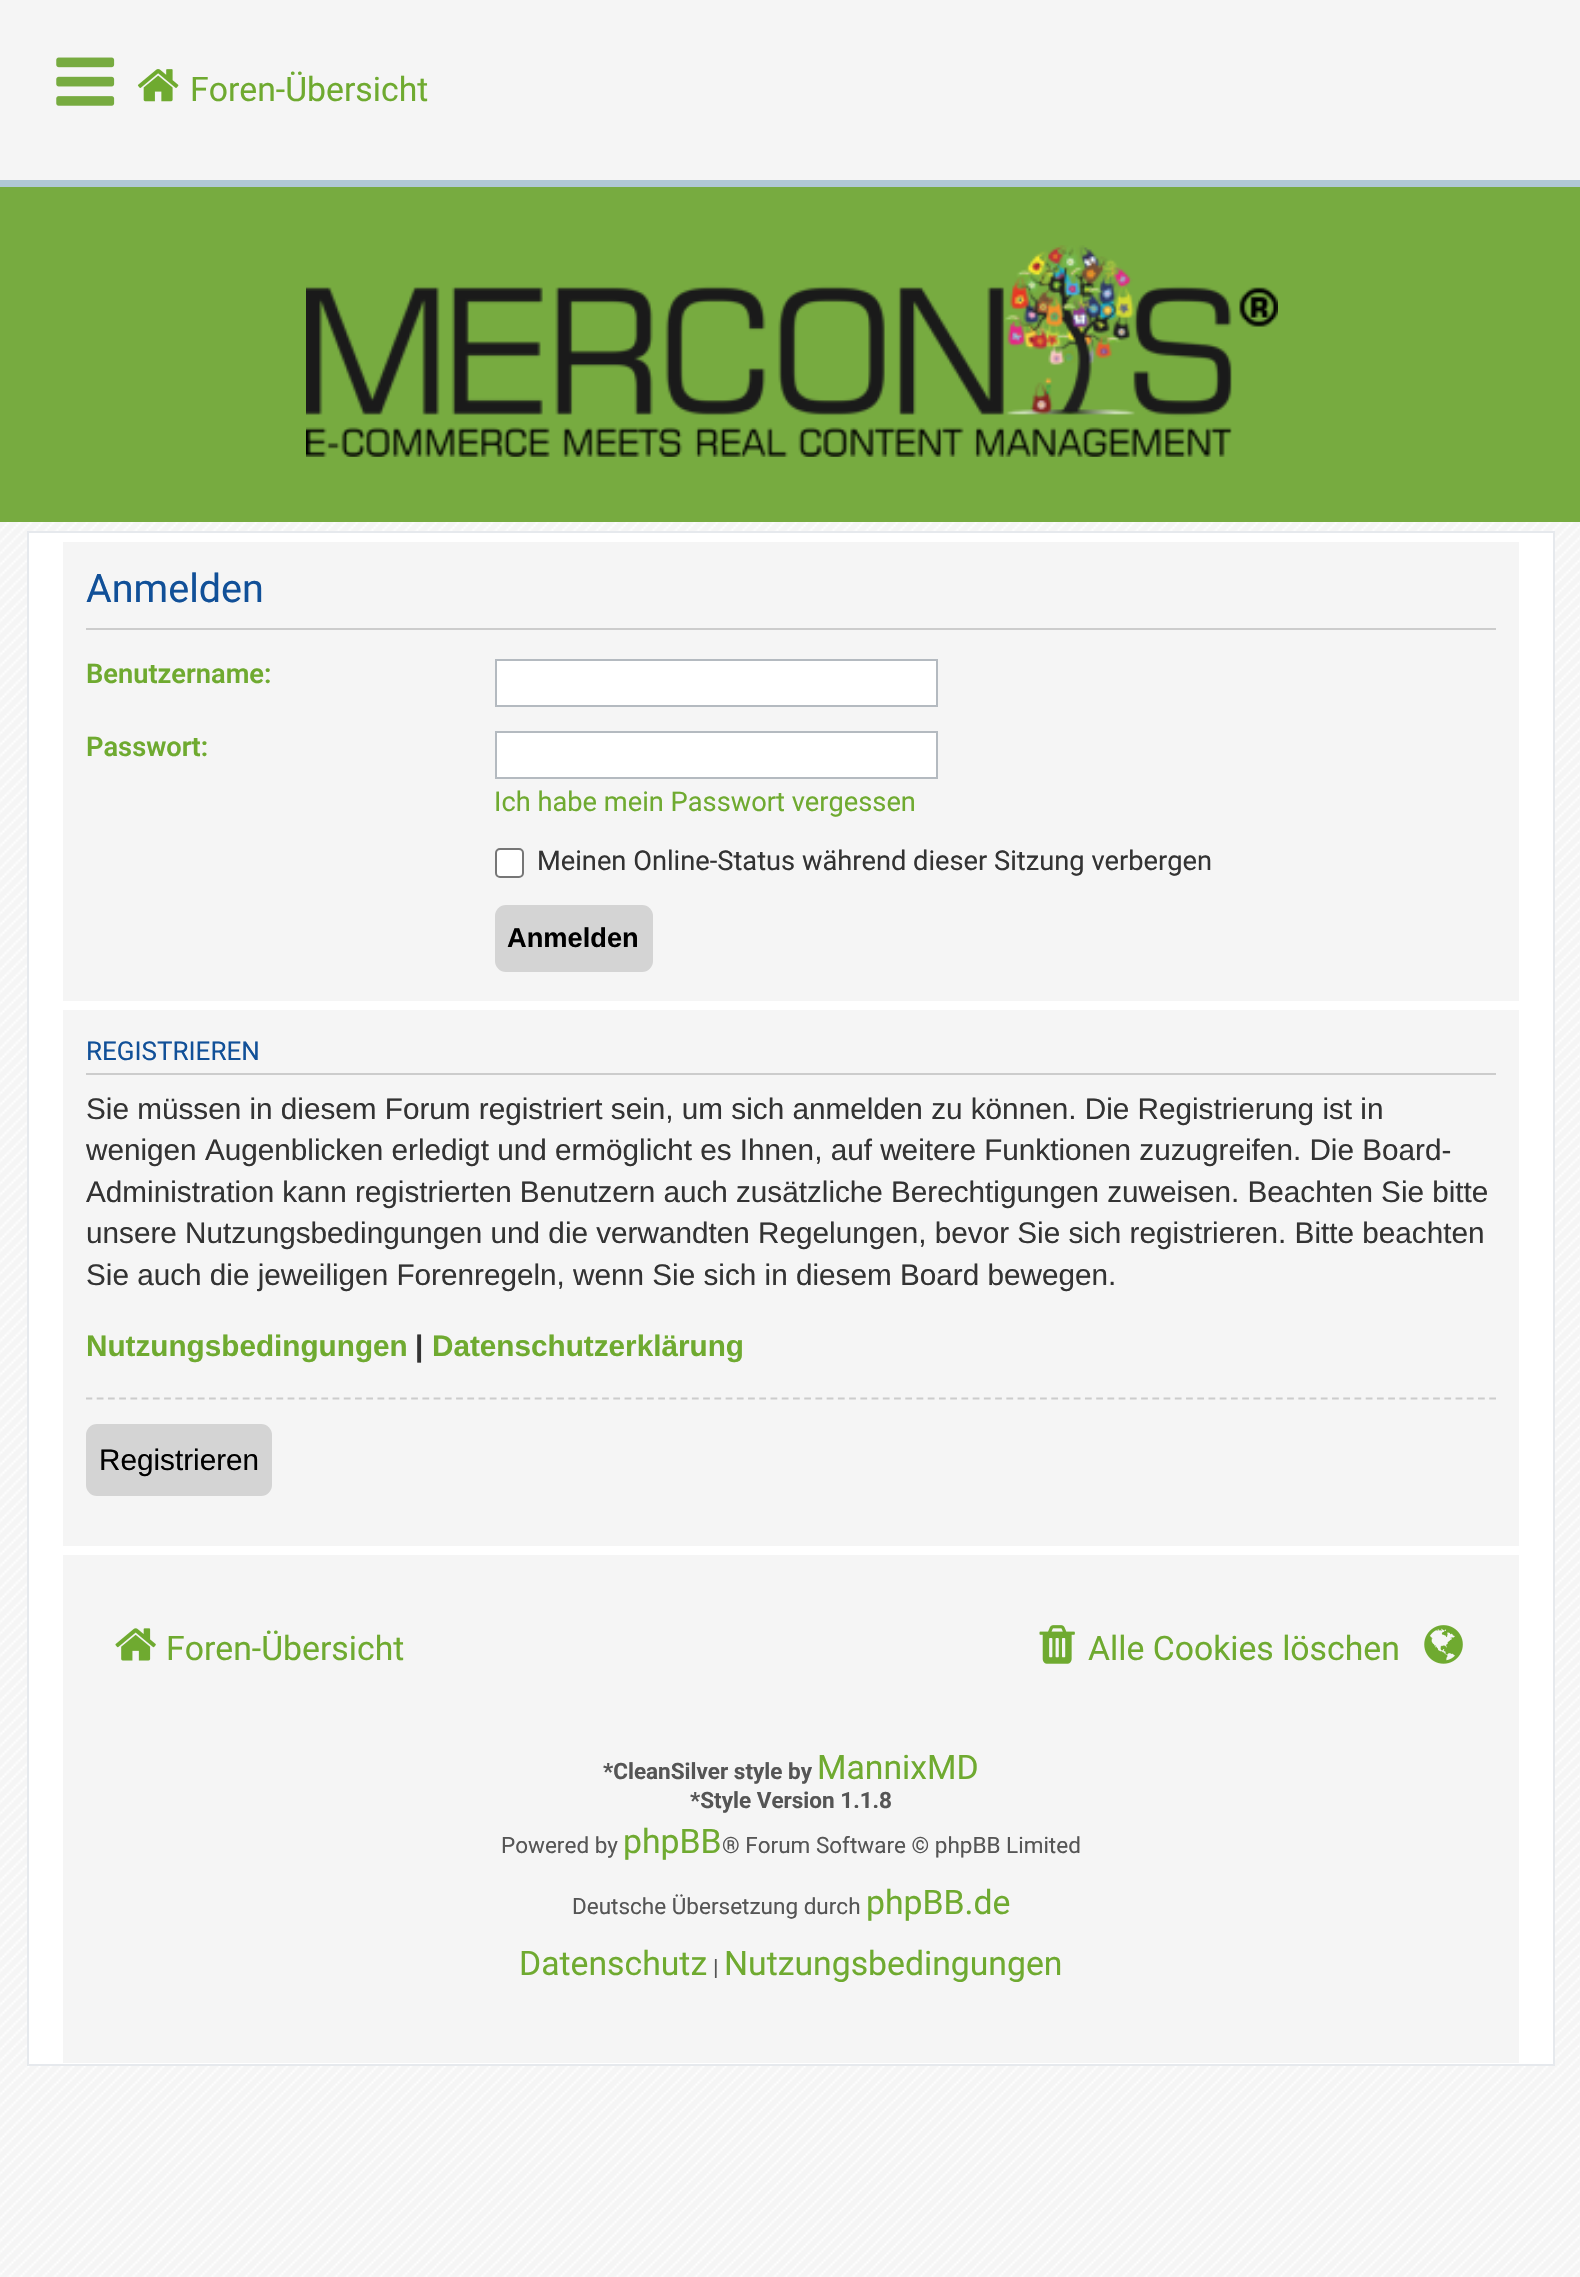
static SkFont makeFont(const char* family, int weight, float size, bool italic = false) {
  SkFontStyle style(weight, SkFontStyle::kNormal_Width,
    italic ? SkFontStyle::kItalic_Slant : SkFontStyle::kUpright_Slant);
  SkFont result(fontMgr->matchFamilyStyle(family, style), size);
  result.setSubpixel(true);
  return result;
}

static void text(SkCanvas* c, const char* s, float x, float y, const SkFont& font, SkColor color) {
  SkPaint ink(SkColor4f::FromColor(color));
  ink.setAntiAlias(true);
  c->drawString(s, x, y, font, ink);
}

static void spacedText(SkCanvas* c, const char* s, float x, float y, const SkFont& font, const SkPaint& ink, float letter, float word) {
  std::vector<SkGlyphID> glyphs(font.countText(s, strlen(s), SkTextEncoding::kUTF8));
  std::vector<float> xs(glyphs.size());
  font.textToGlyphs(s, strlen(s), SkTextEncoding::kUTF8, glyphs);
  font.getXPos(glyphs, xs, x);
  float extra = 0;
  for (size_t i = 0; i < glyphs.size(); i++) {
    xs[i] += extra;
    extra += letter + word * (glyphs[i] == font.unicharToGlyph(' '));
  }
  c->drawTextBlob(SkTextBlob::MakeFromPosHGlyphs(glyphs, xs, y, font), 0, 0, ink);
}

static void box(SkCanvas* c, float l, float t, float r, float b, SkColor color) {
  SkPaint ink(SkColor4f::FromColor(color));
  ink.setAntiAlias(true);
  c->drawRect(SkRect::MakeLTRB(l, t, r, b), ink);
}

static void roundBox(SkCanvas* c, float l, float t, float r, float b, float radius, SkColor color) {
  SkPaint ink(SkColor4f::FromColor(color));
  ink.setAntiAlias(true);
  c->drawRoundRect(SkRect::MakeLTRB(l, t, r, b), radius, radius, ink);
}

static void picture(SkCanvas* c, const char* path, float l, float t, float r, float b) {
  auto image = SkImages::DeferredFromEncodedData(SkData::MakeFromFileName(path));
  c->drawImageRect(image, SkRect::MakeLTRB(l, t, r, b), SkSamplingOptions());
}

void draw(SkCanvas* c) {
  SkPaint paint;
  paint.setAntiAlias(true);
  c->clear(0xffffffff);
  picture(c, "img_01.png", 0, 522, 1580, 2277);
  box(c, 0, 0, 1580, 180, 0xfff5f5f5);
  box(c, 0, 180, 1580, 187, 0xffb0c8d4);
  picture(c, "img_02.png", 56, 57, 115, 106);
  picture(c, "img_03.png", 137, 69, 179, 102);
  SkFont face1 = makeFont("Roboto", 400, 33.75f);
  text(c, "Foren-Übersicht", 190, 101, face1, 0xff6faa30);
  box(c, 0, 187, 1580, 522, 0xff77ab40);
  picture(c, "img_04.png", 306, 245, 1278, 457);
  paint.setColor(0xffffffff);
  c->drawRect(SkRect::MakeLTRB(28, 532, 1554, 2065), paint);
  paint.setStyle(SkPaint::kStroke_Style);
  paint.setStrokeWidth(2);
  paint.setColor(0xffe6e9ed);
  c->drawRect(SkRect::MakeLTRB(28, 532, 1554, 2065), paint);
  box(c, 63, 542, 1519, 1001, 0xfff5f5f5);
  box(c, 86, 628, 1496, 630, 0xffcccccc);
  SkFont face2 = makeFont("Roboto", 400, 39.5f);
  text(c, "Anmelden", 86, 602, face2, 0xff115098);
  SkFont face3 = makeFont("Roboto", 600, 27.25f);
  text(c, "Benutzername:", 86, 683, face3, 0xff6faa30);
  paint.setStyle(SkPaint::kFill_Style);
  paint.setColor(0xffffffff);
  c->drawRect(SkRect::MakeLTRB(496, 660, 937, 706), paint);
  paint.setStyle(SkPaint::kStroke_Style);
  paint.setColor(0xffb4bac0);
  c->drawRect(SkRect::MakeLTRB(496, 660, 937, 706), paint);
  text(c, "Passwort:", 86, 756, face3, 0xff6faa30);
  paint.setStyle(SkPaint::kFill_Style);
  paint.setColor(0xffffffff);
  c->drawRect(SkRect::MakeLTRB(496, 732, 937, 778), paint);
  paint.setStyle(SkPaint::kStroke_Style);
  paint.setColor(0xffb4bac0);
  c->drawRect(SkRect::MakeLTRB(496, 732, 937, 778), paint);
  SkFont face4 = makeFont("Roboto", 400, 27.25f);
  text(c, "Ich habe mein Passwort vergessen", 494, 811, face4, 0xff6faa30);
  paint.setStyle(SkPaint::kFill_Style);
  paint.setColor(0xffffffff);
  c->drawRoundRect(SkRect::MakeLTRB(496, 849, 523, 877), 4, 4, paint);
  paint.setStyle(SkPaint::kStroke_Style);
  paint.setColor(0xff767676);
  c->drawRoundRect(SkRect::MakeLTRB(496, 849, 523, 877), 4, 4, paint);
  text(c, "Meinen Online-Status während dieser Sitzung verbergen", 537, 870, face4, 0xff333333);
  roundBox(c, 495, 905, 653, 972, 11, 0xffd4d4d4);
  SkFont face5 = makeFont("Liberation Sans", 700, 27.25f);
  text(c, "Anmelden", 507, 947, face5, 0xff000000);
  box(c, 63, 1010, 1519, 1546, 0xfff5f5f5);
  box(c, 86, 1073, 1496, 1075, 0xffcccccc);
  SkFont face6 = makeFont("Roboto", 400, 26);
  text(c, "REGISTRIEREN", 86, 1060, face6, 0xff115098);
  SkFont face7 = makeFont("Liberation Sans", 400, 29.7f);
  text(c, "Sie müssen in diesem Forum registriert sein, um sich anmelden zu können. Die Registrierung ist in", 86, 1119, face7, 0xff333333);
  text(c, "wenigen Augenblicken erledigt und ermöglicht es Ihnen, auf weitere Funktionen zuzugreifen. Die Board-", 86, 1160, face7, 0xff333333);
  paint.setStyle(SkPaint::kFill_Style);
  paint.setColor(0xff333333);
  spacedText(c, "Administration kann registrierten Benutzern auch zusätzliche Berechtigungen zuweisen. Beachten Sie bitte", 86, 1202, face7, paint, 0, -0.1f);
  text(c, "unsere Nutzungsbedingungen und die verwandten Regelungen, bevor Sie sich registrieren. Bitte beachten", 86, 1243, face7, 0xff333333);
  text(c, "Sie auch die jeweiligen Forenregeln, wenn Sie sich in diesem Board bewegen.", 86, 1285, face7, 0xff333333);
  SkFont face8 = makeFont("Liberation Sans", 700, 29.7f);
  text(c, "Nutzungsbedingungen", 86, 1356, face8, 0xff6faa30);
  text(c, "|", 415, 1356, face8, 0xff333333);
  text(c, "Datenschutzerklärung", 432, 1356, face8, 0xff6faa30);
  c->save();
  c->clipRect(SkRect::MakeLTRB(86, 1022, 1496, 1535));
  paint.setStyle(SkPaint::kStroke_Style);
  paint.setStrokeWidth(2.2f);
  paint.setColor(0xffcccccc);
  paint.setPathEffect(SkDashPathEffect::Make({{6.75f, 4.48f}}, 0));
  c->drawPath(SkPathBuilder().moveTo(85.5f, 1398.5f).lineTo(1496, 1398.5f).detach(), paint);
  paint.setPathEffect(nullptr);
  c->restore();
  roundBox(c, 86, 1424, 272, 1496, 11, 0xffd4d4d4);
  text(c, "Registrieren", 99, 1470, face7, 0xff000000);
  box(c, 63, 1555, 1519, 2063, 0xfff5f5f5);
  picture(c, "img_05.png", 115, 1628, 156, 1661);
  text(c, "Foren-Übersicht", 166, 1660, face1, 0xff6faa30);
  picture(c, "img_06.png", 1039, 1625, 1075, 1664);
  text(c, "Alle Cookies löschen", 1088, 1660, face1, 0xff6faa30);
  picture(c, "img_07.png", 1424, 1625, 1463, 1664);
  SkFont face9 = makeFont("Roboto", 700, 22.5f);
  text(c, "*CleanSilver style by", 603, 1779, face9, 0xff555555);
  text(c, "MannixMD", 817, 1779, face1, 0xff6faa30);
  text(c, "*Style Version 1.1.8", 690, 1808, face9, 0xff555555);
  SkFont face10 = makeFont("Roboto", 400, 22.5f);
  text(c, "Powered by", 501, 1853, face10, 0xff555555);
  text(c, "phpBB", 623, 1853, face1, 0xff6faa30);
  text(c, "® Forum Software © phpBB Limited", 722, 1853, face10, 0xff555555);
  text(c, "Deutsche Übersetzung durch", 572, 1914, face10, 0xff555555);
  text(c, "phpBB.de", 866, 1914, face1, 0xff6faa30);
  text(c, "Datenschutz", 519, 1975, face1, 0xff6faa30);
  text(c, "|", 713, 1975, face10, 0xff555555);
  text(c, "Nutzungsbedingungen", 724, 1975, face1, 0xff6faa30);
}
